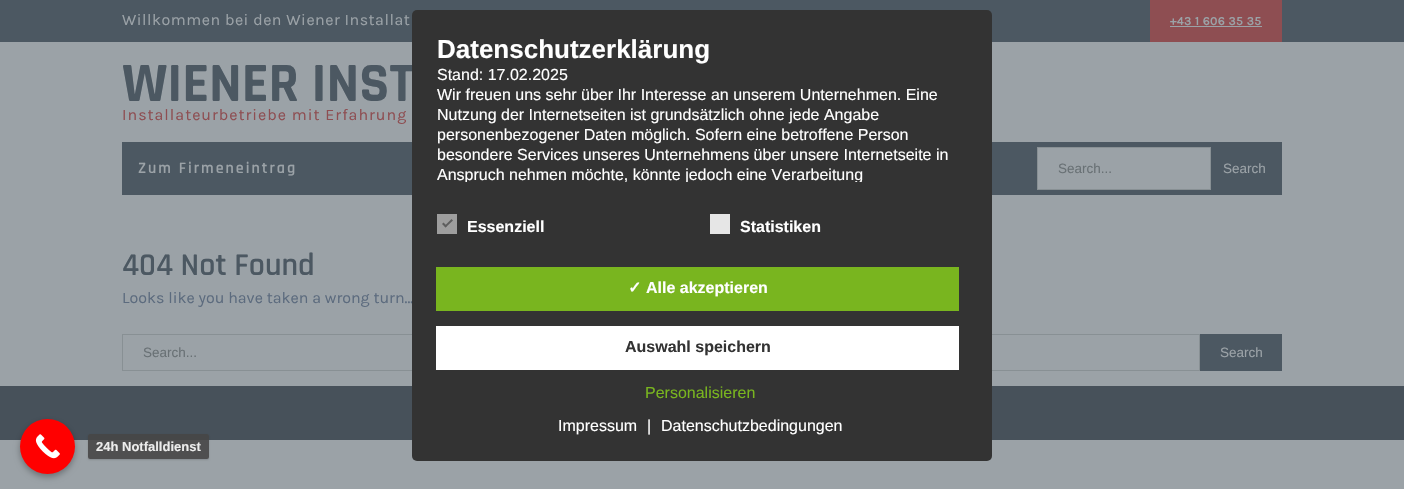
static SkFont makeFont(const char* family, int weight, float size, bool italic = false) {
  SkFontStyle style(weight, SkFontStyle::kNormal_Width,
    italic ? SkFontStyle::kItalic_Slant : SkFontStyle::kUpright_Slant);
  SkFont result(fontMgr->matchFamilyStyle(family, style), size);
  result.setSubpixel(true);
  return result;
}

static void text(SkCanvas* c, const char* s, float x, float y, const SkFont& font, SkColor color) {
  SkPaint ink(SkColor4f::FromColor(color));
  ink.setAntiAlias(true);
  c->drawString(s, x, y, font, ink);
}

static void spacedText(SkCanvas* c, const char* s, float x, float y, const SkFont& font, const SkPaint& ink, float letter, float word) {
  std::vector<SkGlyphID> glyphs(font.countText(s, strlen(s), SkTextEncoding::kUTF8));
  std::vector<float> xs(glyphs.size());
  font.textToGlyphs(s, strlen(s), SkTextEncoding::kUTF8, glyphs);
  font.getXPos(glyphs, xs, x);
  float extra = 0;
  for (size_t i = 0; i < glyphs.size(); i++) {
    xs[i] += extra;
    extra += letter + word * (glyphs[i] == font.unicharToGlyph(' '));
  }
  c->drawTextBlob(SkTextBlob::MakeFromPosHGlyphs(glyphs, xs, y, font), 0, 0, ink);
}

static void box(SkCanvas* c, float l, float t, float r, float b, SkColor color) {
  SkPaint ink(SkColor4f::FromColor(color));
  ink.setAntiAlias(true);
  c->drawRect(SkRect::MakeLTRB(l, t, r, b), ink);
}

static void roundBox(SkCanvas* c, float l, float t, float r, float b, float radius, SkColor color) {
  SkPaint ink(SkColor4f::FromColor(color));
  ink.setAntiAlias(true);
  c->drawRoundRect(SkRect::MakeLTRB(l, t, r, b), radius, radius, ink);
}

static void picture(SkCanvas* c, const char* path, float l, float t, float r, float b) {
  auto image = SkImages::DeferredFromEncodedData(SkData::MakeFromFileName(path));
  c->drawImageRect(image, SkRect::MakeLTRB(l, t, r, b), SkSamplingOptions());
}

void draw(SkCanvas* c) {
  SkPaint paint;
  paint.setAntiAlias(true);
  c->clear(0xff9ba2a7);
  box(c, 0, 0, 1404, 42, 0xff4c5862);
  SkFont face1 = makeFont("Karla", 400, 16);
  paint.setColor(0xff9ba2a7);
  spacedText(c, "Willkommen bei den Wiener Installat", 122, 25, face1, paint, 0.5f, 0);
  box(c, 1150, 0, 1282, 42, 0xff8e4e52);
  SkFont face2 = makeFont("Karla", 700, 12);
  spacedText(c, "+43 1 606 35 35", 1170, 25, face2, paint, 0.5f, 0);
  box(c, 1170, 26, 1262, 27, 0xff9ba2a7);
  SkFont face3 = makeFont("Rajdhani", 700, 56);
  text(c, "WIENER INST", 122, 101, face3, 0xff4c5862);
  box(c, 122, 142, 1282, 195, 0xff4c5862);
  text(c, "Looks like you have taken a wrong turn...", 122, 303, face1, 0xff5c6b7e);
  paint.setStyle(SkPaint::kStroke_Style);
  paint.setStrokeWidth(1);
  paint.setColor(0xff889094);
  c->drawRect(SkRect::MakeLTRB(122.5f, 334.5f, 1199.5f, 370.5f), paint);
  box(c, 0, 386, 1404, 440, 0xff47515a);
  roundBox(c, 412, 10, 992, 461, 5, 0xff333333);
  SkFont face4 = makeFont("Liberation Sans", 700, 26);
  text(c, "Datenschutzerklärung", 437, 58, face4, 0xffffffff);
  SkFont face5 = makeFont("Liberation Sans", 400, 16);
  text(c, "Stand: 17.02.2025", 437, 80, face5, 0xffffffff);
  text(c, "Wir freuen uns sehr über Ihr Interesse an unserem Unternehmen. Eine", 437, 100, face5, 0xffffffff);
  text(c, "Nutzung der Internetseiten ist grundsätzlich ohne jede Angabe", 437, 120, face5, 0xffffffff);
  text(c, "personenbezogener Daten möglich. Sofern eine betroffene Person", 437, 140, face5, 0xffffffff);
  text(c, "besondere Services unseres Unternehmens über unsere Internetseite in", 437, 160, face5, 0xffffffff);
  c->save();
  c->clipRect(SkRect::MakeLTRB(437, 35, 977, 182));
  text(c, "Anspruch nehmen möchte, könnte jedoch eine Verarbeitung", 437, 180, face5, 0xffffffff);
  c->restore();
  box(c, 437, 214, 457, 234, 0xff9e9e9e);
  paint.setStyle(SkPaint::kFill_Style);
  paint.setColor(0xff5e5e5e);
  c->drawPath(SkPathBuilder().moveTo(451.5f, 219).lineTo(453, 220.5f).lineTo(445.5f, 227.5f).lineTo(444.5f, 226).close().detach(), paint);
  c->drawPath(SkPathBuilder().moveTo(443.5f, 222.5f).lineTo(447, 226).lineTo(445.5f, 227.5f).lineTo(442, 224).close().detach(), paint);
  SkFont face6 = makeFont("Liberation Sans", 700, 16);
  text(c, "Essenziell", 467, 232, face6, 0xffffffff);
  box(c, 710, 214, 730, 234, 0xffe6e6e6);
  text(c, "Statistiken", 740, 232, face6, 0xffffffff);
  box(c, 436, 267, 959, 311, 0xff79b51f);
  SkFont face7 = makeFont("DejaVu Sans", 700, 16);
  text(c, "✓", 628, 293, face7, 0xffffffff);
  text(c, "Alle akzeptieren", 646, 293, face6, 0xffffffff);
  box(c, 436, 326, 959, 370, 0xffffffff);
  text(c, "Auswahl speichern", 625, 352, face6, 0xff333333);
  text(c, "Personalisieren", 645, 398, face5, 0xff79b51f);
  text(c, "Impressum", 558, 431, face5, 0xffffffff);
  text(c, "|", 647, 431, face5, 0xffffffff);
  text(c, "Datenschutzbedingungen", 661, 431, face5, 0xffffffff);
  paint.setColor(0xff8e4e52);
  spacedText(c, "Installateurbetriebe mit Erfahrung", 122, 120, face1, paint, 1, 0);
  SkFont face8 = makeFont("Rajdhani", 600, 16);
  paint.setColor(0xff9ba2a7);
  spacedText(c, "Zum Firmeneintrag", 138, 173, face8, paint, 2, 0);
  c->drawRect(SkRect::MakeLTRB(1037.5f, 147.5f, 1210.5f, 189.5f), paint);
  paint.setStyle(SkPaint::kStroke_Style);
  paint.setColor(0xff889094);
  c->drawRect(SkRect::MakeLTRB(1037.5f, 147.5f, 1210.5f, 189.5f), paint);
  SkFont face9 = makeFont("Liberation Sans", 400, 13.5f);
  text(c, "Search...", 1058, 173, face9, 0xff697175);
  text(c, "Search", 1223, 173, face9, 0xff9ba2a7);
  SkFont face10 = makeFont("Rajdhani", 600, 32);
  text(c, "404 Not Found", 122, 275, face10, 0xff4c5862);
  text(c, "Search...", 143, 357, face9, 0xff697175);
  box(c, 1200, 334, 1282, 371, 0xff4c5862);
  text(c, "Search", 1220, 357, face9, 0xff9ba2a7);
  paint.setStyle(SkPaint::kFill_Style);
  paint.setColor(0x4d000000);
  paint.setMaskFilter(SkMaskFilter::MakeBlur(kNormal_SkBlurStyle, 3));
  c->drawRoundRect(SkRect::MakeLTRB(20, 422, 75, 477), 27.5f, 27.5f, paint);
  paint.setMaskFilter(nullptr);
  paint.setColor(0xffff0000);
  c->drawCircle(47.5f, 446.5f, 27.5f, paint);
  picture(c, "img_01.png", 35, 434, 60, 459);
  c->save();
  c->clipPath(SkPathBuilder(SkPathFillType::kEvenOdd).moveTo(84, 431).lineTo(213, 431).lineTo(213, 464).lineTo(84, 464).close().moveTo(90, 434).lineTo(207, 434).cubicTo(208, 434, 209, 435, 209, 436).lineTo(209, 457).cubicTo(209, 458, 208, 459, 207, 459).lineTo(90, 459).cubicTo(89, 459, 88, 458, 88, 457).lineTo(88, 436).cubicTo(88, 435, 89, 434, 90, 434).close().detach(), true);
  paint.setColor(0x26000000);
  paint.setMaskFilter(SkMaskFilter::MakeBlur(kNormal_SkBlurStyle, 1));
  c->drawRoundRect(SkRect::MakeLTRB(88, 435, 209, 460), 2, 2, paint);
  paint.setMaskFilter(nullptr);
  c->restore();
  roundBox(c, 88, 434, 209, 459, 2, 0xe6464646);
  SkFont face11 = makeFont("Liberation Sans", 700, 13);
  text(c, "24h Notfalldienst", 96, 451, face11, 0xffececec);
}
